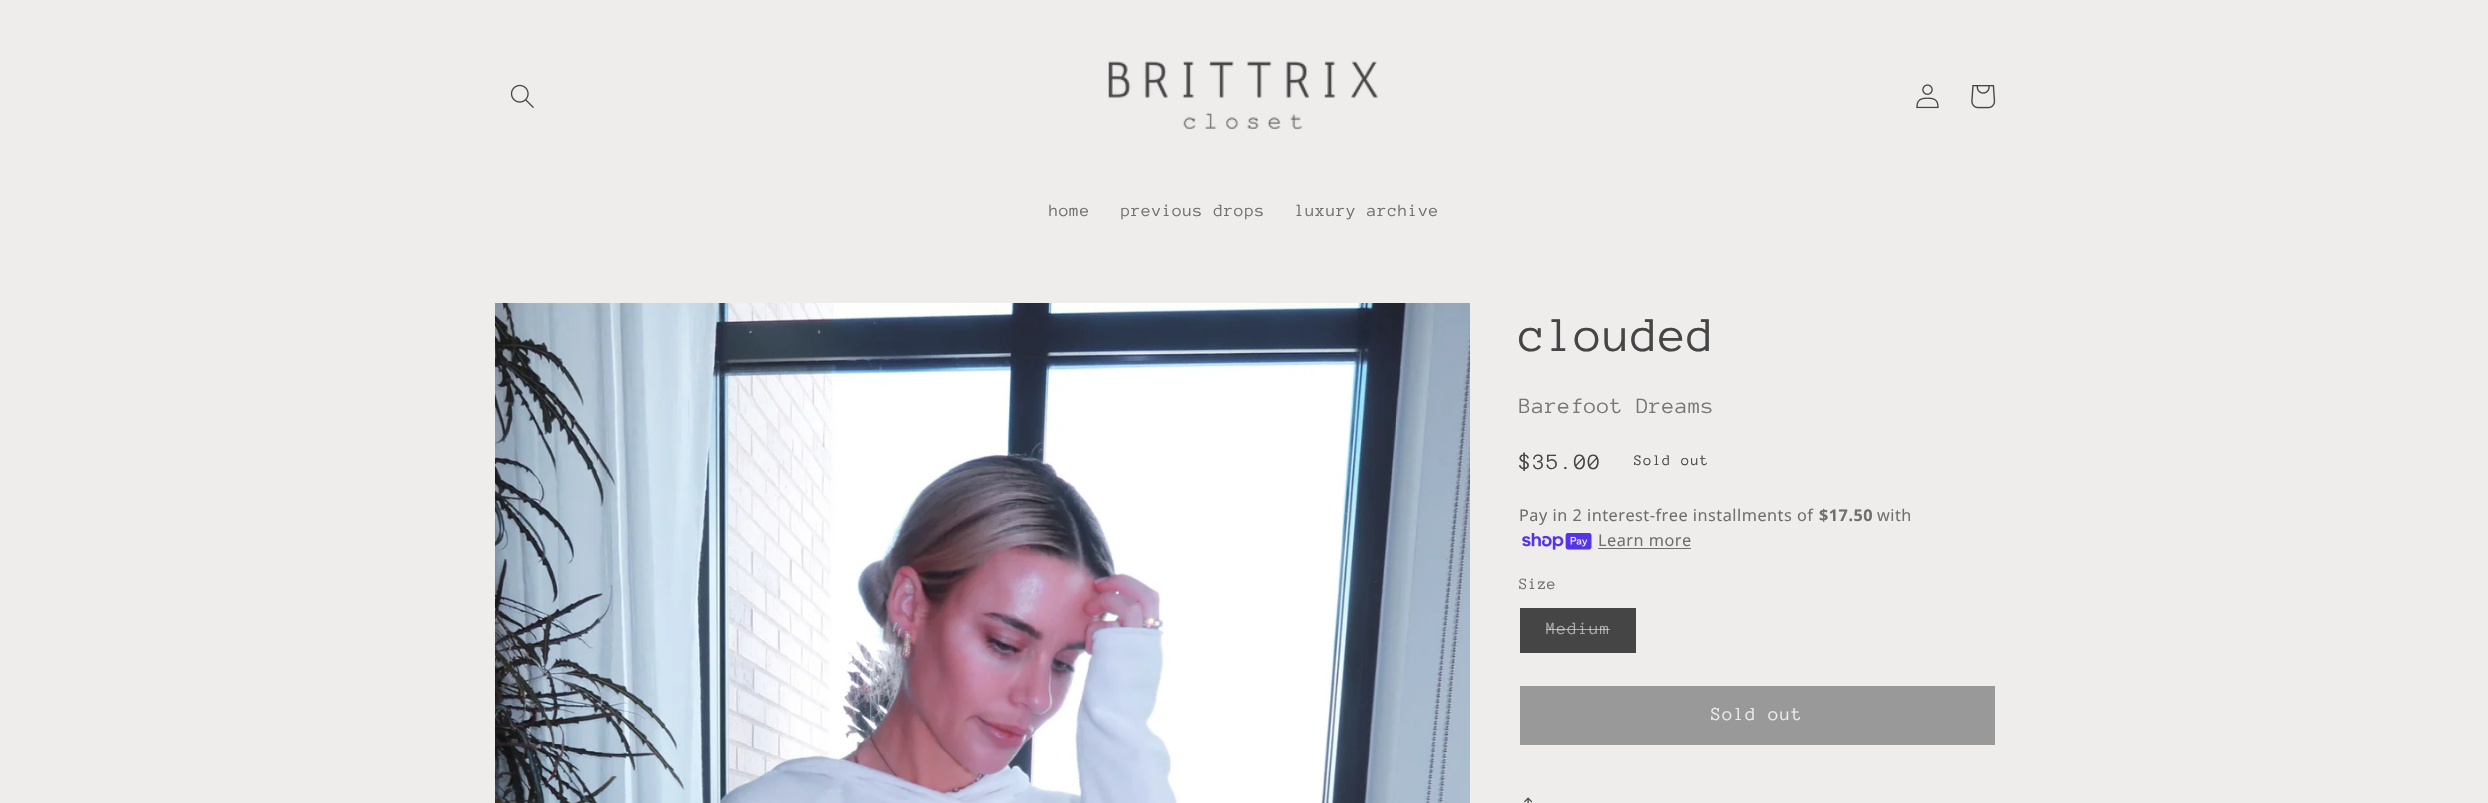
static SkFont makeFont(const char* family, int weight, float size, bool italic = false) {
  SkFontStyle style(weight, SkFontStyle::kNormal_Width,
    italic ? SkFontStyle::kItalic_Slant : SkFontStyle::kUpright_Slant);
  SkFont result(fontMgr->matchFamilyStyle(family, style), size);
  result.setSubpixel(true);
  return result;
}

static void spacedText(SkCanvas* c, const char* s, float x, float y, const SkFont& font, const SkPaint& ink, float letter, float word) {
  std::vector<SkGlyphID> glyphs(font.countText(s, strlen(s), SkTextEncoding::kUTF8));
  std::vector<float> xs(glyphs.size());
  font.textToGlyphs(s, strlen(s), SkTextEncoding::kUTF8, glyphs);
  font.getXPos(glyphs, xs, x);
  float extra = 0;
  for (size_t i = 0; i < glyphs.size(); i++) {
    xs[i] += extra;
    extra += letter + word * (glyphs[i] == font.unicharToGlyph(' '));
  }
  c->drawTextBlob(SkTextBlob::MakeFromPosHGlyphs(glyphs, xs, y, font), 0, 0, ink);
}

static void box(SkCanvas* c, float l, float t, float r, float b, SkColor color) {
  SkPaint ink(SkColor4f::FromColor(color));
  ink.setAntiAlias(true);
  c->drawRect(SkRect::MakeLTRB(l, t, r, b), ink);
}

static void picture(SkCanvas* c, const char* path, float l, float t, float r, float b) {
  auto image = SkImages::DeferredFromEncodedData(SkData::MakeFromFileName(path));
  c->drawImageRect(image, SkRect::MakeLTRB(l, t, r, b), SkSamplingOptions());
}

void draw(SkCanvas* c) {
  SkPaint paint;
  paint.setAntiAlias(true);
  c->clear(0xffefecec);
  picture(c, "img_01.png", 510, 84, 534, 108);
  picture(c, "img_02.png", 1108, 61, 1378, 130);
  picture(c, "img_03.png", 1916, 84, 1939, 109);
  picture(c, "img_04.png", 1971, 85, 1996, 109);
  SkFont face1 = makeFont("Anonymous Pro", 400, 17.5f);
  paint.setColor(0xff706f6f);
  spacedText(c, "home", 1049, 216, face1, paint, 0.75f, 0);
  spacedText(c, "previous drops", 1121, 216, face1, paint, 0.75f, 0);
  spacedText(c, "luxury archive", 1295, 216, face1, paint, 0.75f, 0);
  picture(c, "img_05.png", 495, 303, 1470, 803);
  SkFont face2 = makeFont("Anonymous Pro", 400, 50);
  paint.setColor(0xff454545);
  spacedText(c, "clouded", 1519, 351, face2, paint, 0.75f, 0);
  SkFont face3 = makeFont("Anonymous Pro", 400, 22.5f);
  paint.setColor(0xff787777);
  spacedText(c, "Barefoot Dreams", 1519, 413, face3, paint, 0.75f, 0);
  paint.setColor(0xff454545);
  spacedText(c, "$35.00", 1519, 469, face3, paint, 1.5f, 0);
  SkFont face4 = makeFont("Anonymous Pro", 400, 15);
  spacedText(c, "Sold out", 1634, 465, face4, paint, 1.25f, 0);
  SkFont face5 = makeFont("Noto Sans", 400, 16.25f);
  paint.setColor(0xff706f6f);
  spacedText(c, "Pay in 2 interest-free installments of", 1519, 521, face5, paint, 0.5f, 0);
  SkFont face6 = makeFont("Noto Sans", 700, 16.25f);
  spacedText(c, "$17.50", 1819, 521, face6, paint, 0.5f, 0);
  spacedText(c, "with", 1877, 521, face5, paint, 0.5f, 0);
  picture(c, "img_06.png", 1522, 533, 1592, 550);
  spacedText(c, "Learn more", 1598, 546, face5, paint, 0.5f, 0);
  box(c, 1598, 548, 1691, 549, 0xff706f6f);
  SkFont face7 = makeFont("Anonymous Pro", 400, 16.25f);
  spacedText(c, "Size", 1519, 589, face7, paint, 0.5f, 0);
  box(c, 1520, 608, 1636, 653, 0xff454545);
  paint.setColor(0xffaba9a9);
  spacedText(c, "Medium", 1546, 634, face1, paint, 1.25f, 0);
  box(c, 1546, 629, 1610, 630, 0x99efecec);
  box(c, 1520, 686, 1995, 745, 0xff9a9999);
  SkFont face8 = makeFont("Anonymous Pro", 400, 18.75f);
  paint.setColor(0xffefecec);
  spacedText(c, "Sold out", 1711, 720, face8, paint, 1.25f, 0);
  picture(c, "img_07.png", 1524, 797, 1533, 803);
}
